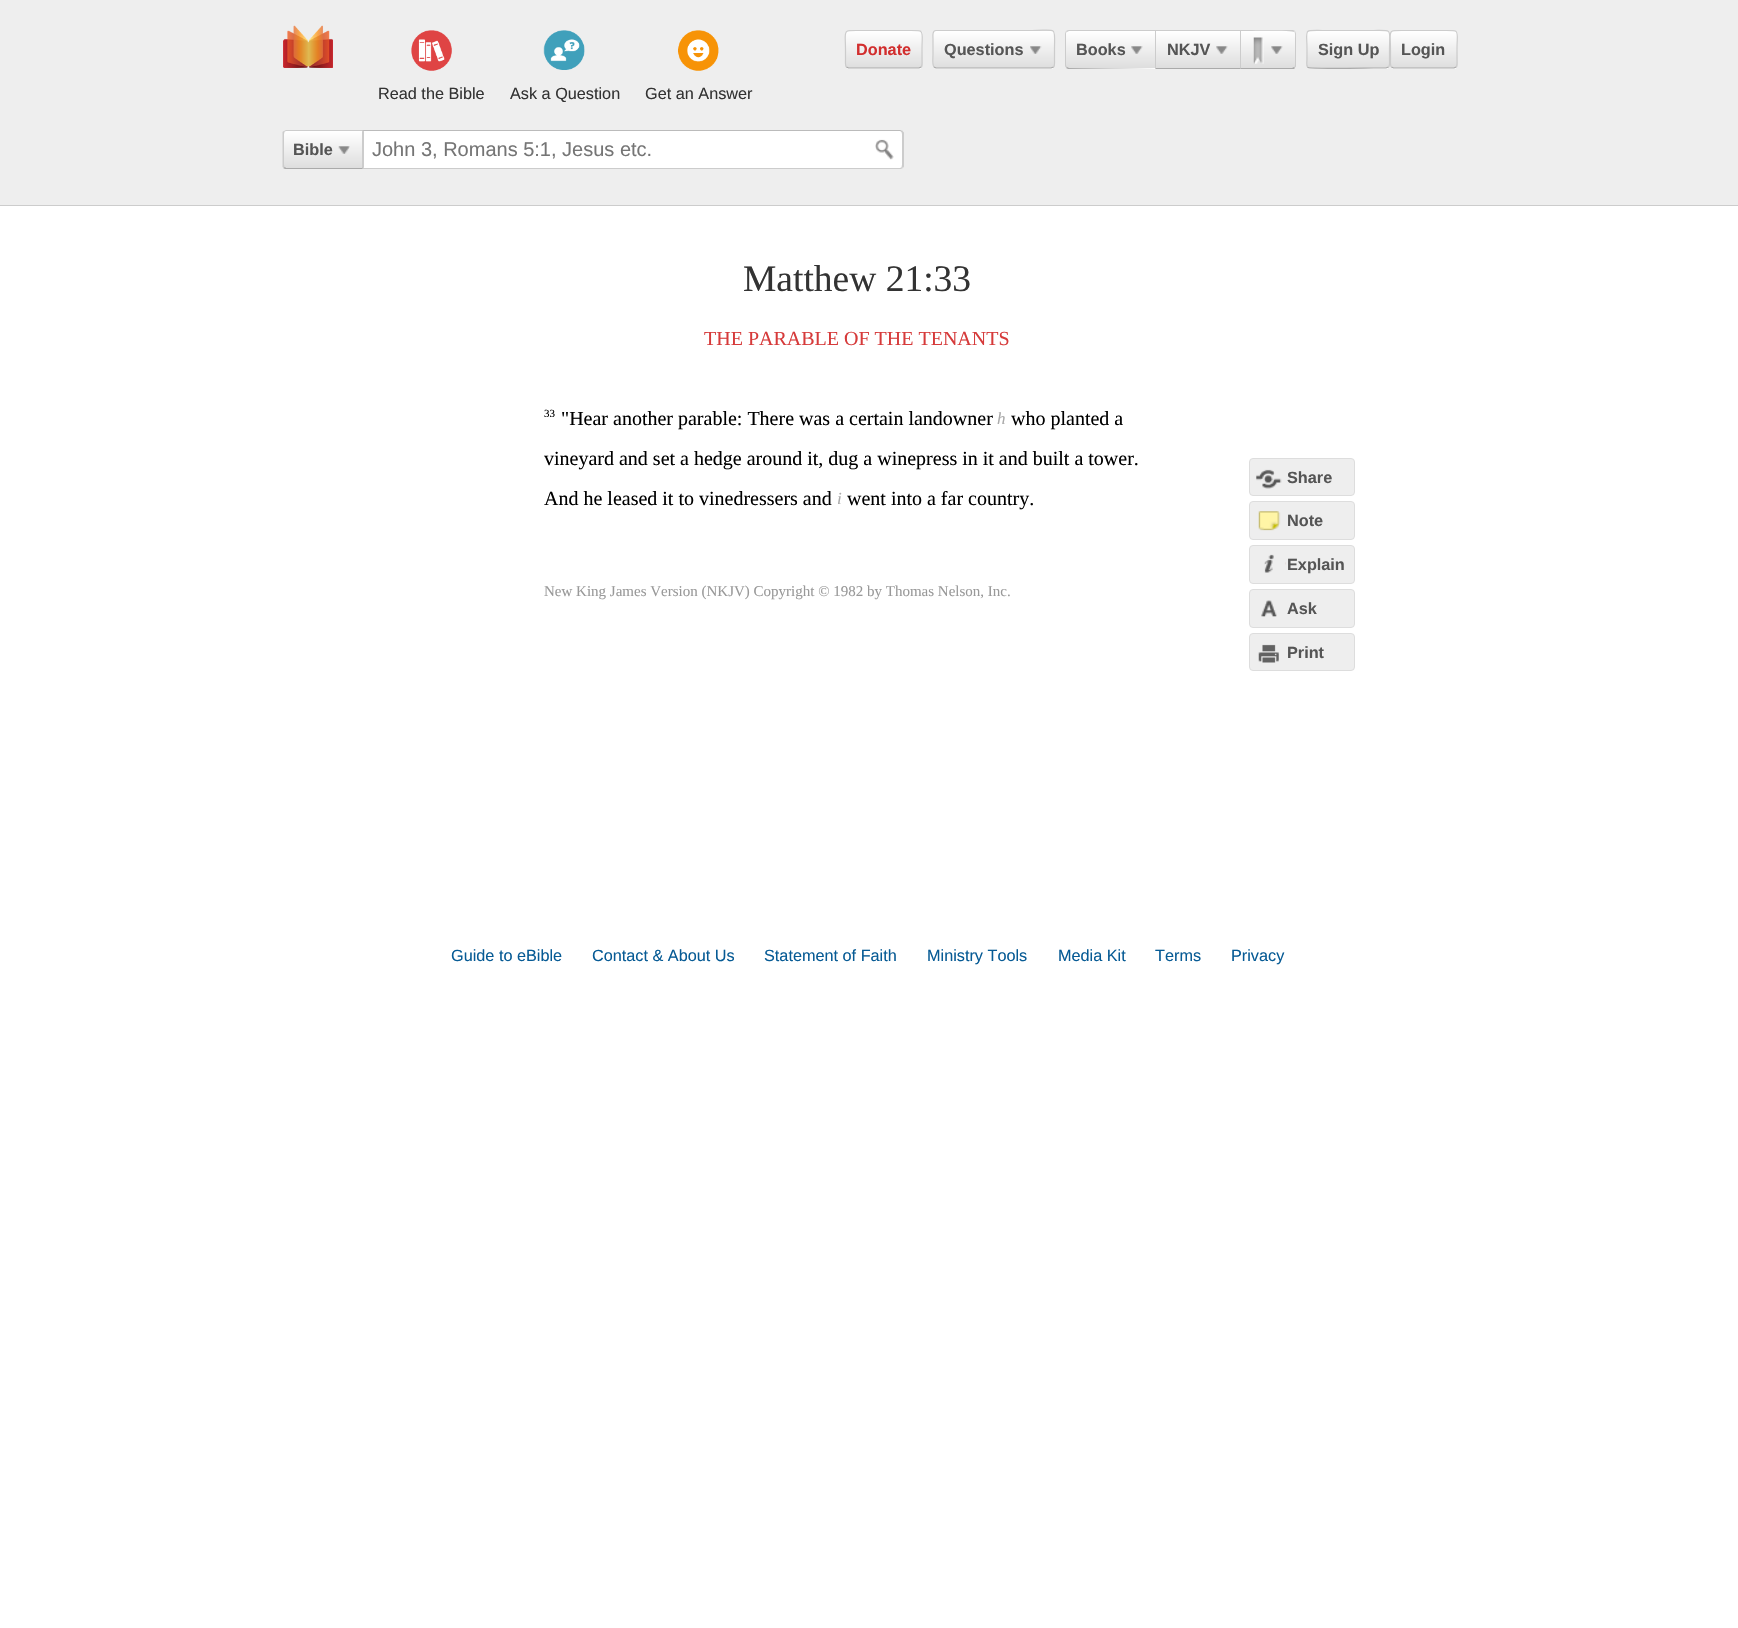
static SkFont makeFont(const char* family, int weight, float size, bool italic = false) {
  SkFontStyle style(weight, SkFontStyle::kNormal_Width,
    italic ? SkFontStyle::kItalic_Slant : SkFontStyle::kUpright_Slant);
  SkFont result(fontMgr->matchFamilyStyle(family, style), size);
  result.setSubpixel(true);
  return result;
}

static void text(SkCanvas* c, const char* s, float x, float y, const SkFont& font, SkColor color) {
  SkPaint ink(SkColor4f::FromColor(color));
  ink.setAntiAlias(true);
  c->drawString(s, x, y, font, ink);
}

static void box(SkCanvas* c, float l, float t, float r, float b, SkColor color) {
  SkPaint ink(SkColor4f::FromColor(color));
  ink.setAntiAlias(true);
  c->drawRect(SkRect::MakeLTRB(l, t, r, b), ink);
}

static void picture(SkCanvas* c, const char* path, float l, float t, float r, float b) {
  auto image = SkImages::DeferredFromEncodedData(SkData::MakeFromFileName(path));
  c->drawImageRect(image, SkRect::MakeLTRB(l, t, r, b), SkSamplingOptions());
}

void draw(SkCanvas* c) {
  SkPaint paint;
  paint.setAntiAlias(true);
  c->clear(0xffffffff);
  box(c, 0, 0, 1738, 205, 0xffeeeeee);
  box(c, 0, 205, 1738, 206, 0xffcccccc);
  picture(c, "img_01.png", 283, 25, 333, 68);
  c->save();
  c->clipPath(SkPathBuilder().moveTo(849, 30).lineTo(919, 30).cubicTo(921, 30, 923, 32, 923, 34).lineTo(923, 65).cubicTo(923, 67, 921, 69, 919, 69).lineTo(849, 69).cubicTo(847, 69, 845, 67, 845, 65).lineTo(845, 34).cubicTo(845, 32, 847, 30, 849, 30).close().detach(), true);
  {
    const SkColor colors[] = {0xffffffff, 0xffdedede};
    const float stops[] = {0, 1};
    const SkPoint ends[] = {{884, -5}, {884, 31}};
    paint.setShader(SkGradientShader::MakeLinear(ends, colors, stops, 2, SkTileMode::kClamp));
    paint.setAlpha(255);
  }
  c->drawRect(SkRect::MakeLTRB(845, 30, 923, 31), paint);
  {
    const SkColor colors[] = {0xffffffff, 0xffdedede};
    const float stops[] = {0, 1};
    const SkPoint ends[] = {{884, 31}, {884, 68}};
    paint.setShader(SkGradientShader::MakeLinear(ends, colors, stops, 2, SkTileMode::kClamp));
    paint.setAlpha(255);
  }
  c->drawRect(SkRect::MakeLTRB(845, 31, 923, 68), paint);
  {
    const SkColor colors[] = {0xffffffff, 0xffdedede};
    const float stops[] = {0, 1};
    const SkPoint ends[] = {{884, 68}, {884, 104}};
    paint.setShader(SkGradientShader::MakeLinear(ends, colors, stops, 2, SkTileMode::kClamp));
    paint.setAlpha(255);
  }
  c->drawRect(SkRect::MakeLTRB(845, 68, 923, 69), paint);
  c->restore();
  paint.setStyle(SkPaint::kStroke_Style);
  paint.setStrokeWidth(1.2f);
  paint.setShader(nullptr);
  paint.setColor(0xffaaaaaa);
  c->drawPath(SkPathBuilder().moveTo(921, 67).lineTo(919, 68).lineTo(848.5f, 68).lineTo(846.5f, 67).detach(), paint);
  paint.setColor(0xffcccccc);
  c->drawPath(SkPathBuilder().moveTo(846.5f, 67).cubicTo(845, 65.5f, 845.5f, 61.5f, 845.5f, 60).lineTo(845.5f, 49.5f).cubicTo(845.5f, 29, 841.5f, 30.5f, 860.5f, 30.5f).lineTo(907, 30.5f).cubicTo(926, 30.5f, 922, 29, 922, 49.5f).lineTo(922, 60).cubicTo(922, 61.5f, 922.5f, 65.5f, 921, 67).detach(), paint);
  SkFont face1 = makeFont("Liberation Sans", 700, 16.25f);
  text(c, "Donate", 856, 55, face1, 0xffd22e2e);
  c->save();
  c->clipPath(SkPathBuilder().moveTo(937, 30).lineTo(1051, 30).cubicTo(1053, 30, 1055, 32, 1055, 34).lineTo(1055, 65).cubicTo(1055, 67, 1053, 69, 1051, 69).lineTo(937, 69).cubicTo(935, 69, 933, 67, 933, 65).lineTo(933, 34).cubicTo(933, 32, 935, 30, 937, 30).close().detach(), true);
  paint.setStyle(SkPaint::kFill_Style);
  {
    const SkColor colors[] = {0xffffffff, 0xffdedede};
    const float stops[] = {0, 1};
    const SkPoint ends[] = {{994, -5}, {994, 31}};
    paint.setShader(SkGradientShader::MakeLinear(ends, colors, stops, 2, SkTileMode::kClamp));
    paint.setAlpha(255);
  }
  c->drawRect(SkRect::MakeLTRB(933, 30, 1055, 31), paint);
  {
    const SkColor colors[] = {0xffffffff, 0xffdedede};
    const float stops[] = {0, 1};
    const SkPoint ends[] = {{994, 31}, {994, 68}};
    paint.setShader(SkGradientShader::MakeLinear(ends, colors, stops, 2, SkTileMode::kClamp));
    paint.setAlpha(255);
  }
  c->drawRect(SkRect::MakeLTRB(933, 31, 1055, 68), paint);
  {
    const SkColor colors[] = {0xffffffff, 0xffdedede};
    const float stops[] = {0, 1};
    const SkPoint ends[] = {{994, 67}, {994, 104}};
    paint.setShader(SkGradientShader::MakeLinear(ends, colors, stops, 2, SkTileMode::kClamp));
    paint.setAlpha(255);
  }
  c->drawRect(SkRect::MakeLTRB(933, 68, 1055, 69), paint);
  c->restore();
  paint.setStyle(SkPaint::kStroke_Style);
  paint.setShader(nullptr);
  paint.setColor(0xffaaaaaa);
  c->drawPath(SkPathBuilder().moveTo(1053.5f, 67).lineTo(1051, 68).lineTo(936, 68).lineTo(934, 67).detach(), paint);
  paint.setColor(0xffcccccc);
  c->drawPath(SkPathBuilder().moveTo(934, 67).cubicTo(932, 65, 933, 57, 933, 54.5f).lineTo(933, 39).cubicTo(933, 36.5f, 932, 30.5f, 936, 30.5f).lineTo(1032, 30.5f).cubicTo(1058, 30.5f, 1054.5f, 25.5f, 1054.5f, 49.5f).lineTo(1054.5f, 60).cubicTo(1054.5f, 61.5f, 1055, 65.5f, 1053.5f, 67).detach(), paint);
  text(c, "Questions", 944, 55, face1, 0xff555555);
  picture(c, "img_02.png", 1030, 46, 1042, 54);
  c->save();
  c->clipPath(SkPathBuilder().moveTo(1069, 30).lineTo(1156, 30).lineTo(1156, 69).lineTo(1069, 69).cubicTo(1067, 69, 1065, 67, 1065, 65).lineTo(1065, 34).cubicTo(1065, 32, 1067, 30, 1069, 30).close().detach(), true);
  paint.setStyle(SkPaint::kFill_Style);
  {
    const SkColor colors[] = {0xffffffff, 0xffdedede};
    const float stops[] = {0, 1};
    const SkPoint ends[] = {{1111, -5}, {1111, 31}};
    paint.setShader(SkGradientShader::MakeLinear(ends, colors, stops, 2, SkTileMode::kClamp));
    paint.setAlpha(255);
  }
  c->drawRect(SkRect::MakeLTRB(1065, 30, 1069, 31), paint);
  {
    const SkColor colors[] = {0xffffffff, 0xffdedede};
    const float stops[] = {0, 1};
    const SkPoint ends[] = {{1111, 31}, {1111, 68}};
    paint.setShader(SkGradientShader::MakeLinear(ends, colors, stops, 2, SkTileMode::kClamp));
    paint.setAlpha(255);
  }
  c->drawRect(SkRect::MakeLTRB(1065, 31, 1155, 68), paint);
  {
    const SkColor colors[] = {0xffffffff, 0xffdedede};
    const float stops[] = {0, 1};
    const SkPoint ends[] = {{1111, 68}, {1111, 104}};
    paint.setShader(SkGradientShader::MakeLinear(ends, colors, stops, 2, SkTileMode::kClamp));
    paint.setAlpha(255);
  }
  c->drawRect(SkRect::MakeLTRB(1065, 68, 1156, 69), paint);
  c->restore();
  paint.setShader(nullptr);
  paint.setColor(0xffcccccc);
  c->drawPath(SkPathBuilder().moveTo(1069, 30).lineTo(1066, 31).lineTo(1067, 32).lineTo(1069, 31).lineTo(1155, 31).lineTo(1156, 30).close().detach(), paint);
  paint.setColor(0xffaaaaaa);
  c->drawPath(SkPathBuilder().moveTo(1068, 69).lineTo(1066, 68).lineTo(1067, 67).lineTo(1069, 68).lineTo(1155, 68).lineTo(1156, 68).close().detach(), paint);
  paint.setColor(0xffcccccc);
  c->drawPath(SkPathBuilder().moveTo(1065, 34).lineTo(1065, 65).cubicTo(1065, 66, 1065.5f, 67, 1066, 67.5f).lineTo(1067, 67).cubicTo(1066.5f, 66.5f, 1066, 65.5f, 1066, 65).lineTo(1066, 34).cubicTo(1066, 33, 1066, 32, 1067, 32).lineTo(1066, 31).cubicTo(1065.5f, 32, 1065, 33, 1065, 34).close().detach(), paint);
  text(c, "Books", 1076, 55, face1, 0xff555555);
  picture(c, "img_03.png", 1131, 46, 1143, 54);
  {
    const SkColor colors[] = {0xffffffff, 0xffdedede};
    const float stops[] = {0, 1};
    const SkPoint ends[] = {{1198, 31}, {1198, 68}};
    paint.setShader(SkGradientShader::MakeLinear(ends, colors, stops, 2, SkTileMode::kClamp));
    paint.setAlpha(255);
  }
  c->drawRect(SkRect::MakeLTRB(1156, 31, 1240, 68), paint);
  box(c, 1155, 30, 1241, 31, 0xffcccccc);
  box(c, 1155, 68, 1241, 69, 0xffaaaaaa);
  box(c, 1155, 30, 1156, 69, 0xffcccccc);
  text(c, "NKJV", 1167, 55, face1, 0xff555555);
  picture(c, "img_04.png", 1216, 46, 1228, 54);
  c->save();
  c->clipPath(SkPathBuilder().moveTo(1240, 30).lineTo(1292, 30).cubicTo(1294, 30, 1296, 32, 1296, 34).lineTo(1296, 65).cubicTo(1296, 67, 1294, 69, 1292, 69).lineTo(1240, 69).close().detach(), true);
  {
    const SkColor colors[] = {0xffffffff, 0xffdedede};
    const float stops[] = {0, 1};
    const SkPoint ends[] = {{1268, 31}, {1268, 68}};
    paint.setShader(SkGradientShader::MakeLinear(ends, colors, stops, 2, SkTileMode::kClamp));
    paint.setAlpha(255);
  }
  c->drawRect(SkRect::MakeLTRB(1241, 31, 1296, 68), paint);
  c->restore();
  paint.setShader(nullptr);
  paint.setColor(0xffcccccc);
  c->drawPath(SkPathBuilder().moveTo(1240, 30).lineTo(1241, 31).cubicTo(1247, 31, 1293, 30, 1294, 32).lineTo(1295, 31).cubicTo(1294, 30, 1293, 30, 1292, 30).close().detach(), paint);
  c->drawPath(SkPathBuilder().moveTo(1295, 31).cubicTo(1295.5f, 32, 1296, 33, 1296, 34).lineTo(1296, 65).cubicTo(1296, 66, 1296, 67, 1295, 67.5f).lineTo(1294.5f, 67).lineTo(1295, 65).lineTo(1295, 39).cubicTo(1295, 38.5f, 1295.5f, 33.5f, 1294.5f, 32).close().detach(), paint);
  paint.setColor(0xffaaaaaa);
  c->drawPath(SkPathBuilder().moveTo(1294, 69).lineTo(1240, 69).lineTo(1241, 68).lineTo(1292, 68).lineTo(1294, 67).lineTo(1295, 68).close().detach(), paint);
  paint.setColor(0xffcccccc);
  c->drawPath(SkPathBuilder().moveTo(1240, 30).lineTo(1240, 69).lineTo(1241, 68).lineTo(1241, 31).close().detach(), paint);
  picture(c, "img_05.png", 1253, 37, 1264, 64);
  picture(c, "img_04.png", 1271, 46, 1283, 54);
  c->save();
  c->clipPath(SkPathBuilder().moveTo(1310, 30).lineTo(1386, 30).cubicTo(1388, 30, 1390, 32, 1390, 34).lineTo(1390, 65).cubicTo(1390, 67, 1388, 69, 1386, 69).lineTo(1310, 69).cubicTo(1308, 69, 1306, 67, 1306, 65).lineTo(1306, 34).cubicTo(1306, 32, 1308, 30, 1310, 30).close().detach(), true);
  {
    const SkColor colors[] = {0xffffffff, 0xffdedede};
    const float stops[] = {0, 1};
    const SkPoint ends[] = {{1348, -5}, {1348, 31}};
    paint.setShader(SkGradientShader::MakeLinear(ends, colors, stops, 2, SkTileMode::kClamp));
    paint.setAlpha(255);
  }
  c->drawRect(SkRect::MakeLTRB(1306, 30, 1390, 31), paint);
  {
    const SkColor colors[] = {0xffffffff, 0xffdedede};
    const float stops[] = {0, 1};
    const SkPoint ends[] = {{1348, 31}, {1348, 68}};
    paint.setShader(SkGradientShader::MakeLinear(ends, colors, stops, 2, SkTileMode::kClamp));
    paint.setAlpha(255);
  }
  c->drawRect(SkRect::MakeLTRB(1306, 31, 1390, 68), paint);
  {
    const SkColor colors[] = {0xffffffff, 0xffdedede};
    const float stops[] = {0, 1};
    const SkPoint ends[] = {{1348, 68}, {1348, 104}};
    paint.setShader(SkGradientShader::MakeLinear(ends, colors, stops, 2, SkTileMode::kClamp));
    paint.setAlpha(255);
  }
  c->drawRect(SkRect::MakeLTRB(1306, 68, 1390, 69), paint);
  c->restore();
  paint.setStyle(SkPaint::kStroke_Style);
  paint.setShader(nullptr);
  paint.setColor(0xffaaaaaa);
  c->drawPath(SkPathBuilder().moveTo(1388.5f, 67).lineTo(1386, 68).lineTo(1373.5f, 68).cubicTo(1366, 68, 1310, 69, 1308, 67.5f).lineTo(1308, 67).detach(), paint);
  paint.setColor(0xffcccccc);
  c->drawPath(SkPathBuilder().moveTo(1308, 67).cubicTo(1306, 65.5f, 1307, 61.5f, 1307, 60).lineTo(1307, 49.5f).cubicTo(1307, 28.5f, 1302.5f, 30.5f, 1322.5f, 30.5f).lineTo(1373.5f, 30.5f).cubicTo(1393.5f, 30.5f, 1389.5f, 28.5f, 1389.5f, 49.5f).lineTo(1389.5f, 60).cubicTo(1389.5f, 61.5f, 1390, 65.5f, 1388.5f, 67).detach(), paint);
  text(c, "Sign Up", 1318, 55, face1, 0xff555555);
  c->save();
  c->clipPath(SkPathBuilder().moveTo(1394, 30).lineTo(1454, 30).cubicTo(1456, 30, 1458, 32, 1458, 34).lineTo(1458, 65).cubicTo(1458, 67, 1456, 69, 1454, 69).lineTo(1394, 69).cubicTo(1392, 69, 1390, 67, 1390, 65).lineTo(1390, 34).cubicTo(1390, 32, 1392, 30, 1394, 30).close().detach(), true);
  paint.setStyle(SkPaint::kFill_Style);
  {
    const SkColor colors[] = {0xffffffff, 0xffdedede};
    const float stops[] = {0, 1};
    const SkPoint ends[] = {{1424, -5}, {1424, 31}};
    paint.setShader(SkGradientShader::MakeLinear(ends, colors, stops, 2, SkTileMode::kClamp));
    paint.setAlpha(255);
  }
  c->drawRect(SkRect::MakeLTRB(1390, 30, 1458, 31), paint);
  {
    const SkColor colors[] = {0xffffffff, 0xffdedede};
    const float stops[] = {0, 1};
    const SkPoint ends[] = {{1424, 31}, {1424, 68}};
    paint.setShader(SkGradientShader::MakeLinear(ends, colors, stops, 2, SkTileMode::kClamp));
    paint.setAlpha(255);
  }
  c->drawRect(SkRect::MakeLTRB(1390, 31, 1458, 68), paint);
  {
    const SkColor colors[] = {0xffffffff, 0xffdedede};
    const float stops[] = {0, 1};
    const SkPoint ends[] = {{1424, 68}, {1424, 104}};
    paint.setShader(SkGradientShader::MakeLinear(ends, colors, stops, 2, SkTileMode::kClamp));
    paint.setAlpha(255);
  }
  c->drawRect(SkRect::MakeLTRB(1390, 68, 1458, 69), paint);
  c->restore();
  paint.setStyle(SkPaint::kStroke_Style);
  paint.setShader(nullptr);
  paint.setColor(0xffaaaaaa);
  c->drawPath(SkPathBuilder().moveTo(1456, 67).lineTo(1454, 68).lineTo(1393.5f, 68).lineTo(1391.5f, 67).detach(), paint);
  paint.setColor(0xffcccccc);
  c->drawPath(SkPathBuilder().moveTo(1391.5f, 67).cubicTo(1390, 65.5f, 1390.5f, 61.5f, 1390.5f, 60).lineTo(1390.5f, 49.5f).cubicTo(1390.5f, 29.5f, 1386.5f, 30.5f, 1404, 30.5f).lineTo(1444, 30.5f).cubicTo(1461, 30.5f, 1457, 29.5f, 1457, 49.5f).lineTo(1457, 60).cubicTo(1457, 61.5f, 1457.5f, 65.5f, 1456, 67).detach(), paint);
  text(c, "Login", 1401, 55, face1, 0xff555555);
  picture(c, "img_06.png", 411, 30, 452, 71);
  SkFont face2 = makeFont("Liberation Sans", 400, 16.25f);
  text(c, "Read the Bible", 378, 99, face2, 0xff333333);
  picture(c, "img_07.png", 543, 30, 585, 70);
  text(c, "Ask a Question", 510, 99, face2, 0xff333333);
  picture(c, "img_08.png", 678, 30, 719, 71);
  text(c, "Get an Answer", 645, 99, face2, 0xff333333);
  c->save();
  c->clipPath(SkPathBuilder().moveTo(287, 130).lineTo(364, 130).lineTo(364, 169).lineTo(287, 169).cubicTo(285, 169, 283, 167, 283, 165).lineTo(283, 134).cubicTo(283, 132, 285, 130, 287, 130).close().detach(), true);
  paint.setStyle(SkPaint::kFill_Style);
  {
    const SkColor colors[] = {0xffffffff, 0xffdedede};
    const float stops[] = {0, 1};
    const SkPoint ends[] = {{323, 131}, {323, 168}};
    paint.setShader(SkGradientShader::MakeLinear(ends, colors, stops, 2, SkTileMode::kClamp));
    paint.setAlpha(255);
  }
  c->drawRect(SkRect::MakeLTRB(283, 131, 363, 168), paint);
  c->restore();
  paint.setShader(nullptr);
  paint.setColor(0xffcccccc);
  c->drawPath(SkPathBuilder().moveTo(286, 130).lineTo(284, 131).lineTo(284, 132).lineTo(286, 131).lineTo(362, 131).lineTo(362, 132).lineTo(364, 130).close().detach(), paint);
  c->drawPath(SkPathBuilder().moveTo(364, 130).lineTo(362, 132).lineTo(362, 167).lineTo(364, 169).close().detach(), paint);
  paint.setColor(0xffaaaaaa);
  c->drawPath(SkPathBuilder().moveTo(364, 169).lineTo(285, 169).lineTo(283, 168).lineTo(285, 167).lineTo(286, 168).lineTo(362, 168).lineTo(362, 167).close().detach(), paint);
  paint.setColor(0xffcccccc);
  c->drawPath(SkPathBuilder().moveTo(282.5f, 132).lineTo(283.5f, 131).lineTo(284.5f, 132).lineTo(284, 134).lineTo(284, 165).lineTo(284.5f, 166.5f).lineTo(283.5f, 168).lineTo(282.5f, 167).close().detach(), paint);
  text(c, "Bible", 293, 155, face1, 0xff555555);
  picture(c, "img_09.png", 338, 146, 350, 154);
  paint.setColor(0xffffffff);
  c->drawPath(SkPathBuilder().moveTo(363, 130).lineTo(900, 130).cubicTo(902, 130, 904, 132, 904, 134).lineTo(904, 165).cubicTo(904, 167, 902, 169, 900, 169).lineTo(363, 169).close().detach(), paint);
  paint.setColor(0xffbbbbbb);
  c->drawPath(SkPathBuilder().moveTo(364, 131).lineTo(900, 131).lineTo(902, 132).lineTo(903, 131).lineTo(900, 130).lineTo(362, 130).lineTo(364, 132).close().detach(), paint);
  paint.setColor(0xffcccccc);
  c->drawPath(SkPathBuilder().moveTo(904, 166.5f).lineTo(903, 168).lineTo(901.5f, 166.5f).lineTo(902, 165).lineTo(902, 134).lineTo(901.5f, 132).lineTo(902.5f, 131).lineTo(904, 132.5f).close().detach(), paint);
  c->drawPath(SkPathBuilder().moveTo(903, 168).lineTo(901, 169).lineTo(362, 169).lineTo(364, 167).lineTo(364, 168).lineTo(900, 168).lineTo(902, 167).close().detach(), paint);
  c->drawPath(SkPathBuilder().moveTo(362.5f, 169).lineTo(364, 167).lineTo(364, 131.5f).lineTo(362.5f, 130).close().detach(), paint);
  SkFont face3 = makeFont("Liberation Sans", 400, 20);
  text(c, "John 3, Romans 5:1, Jesus etc.", 372, 156, face3, 0xff757575);
  picture(c, "img_10.png", 875, 139, 894, 160);
  SkFont face4 = makeFont("Liberation Serif", 400, 37.5f);
  text(c, "Matthew 21:33", 743, 291, face4, 0xff333333);
  SkFont face5 = makeFont("Liberation Serif", 400, 20);
  text(c, "THE PARABLE OF THE TENANTS", 704, 345, face5, 0xffd63a3a);
  SkFont face6 = makeFont("Liberation Serif", 400, 11);
  text(c, "33", 544, 417, face6, 0xff000000);
  text(c, "\"Hear another parable: There was a certain landowner", 561, 425, face5, 0xff000000);
  SkFont face7 = makeFont("Liberation Serif", 400, 17, true);
  text(c, "h", 997, 424, face7, 0xffaaaaaa);
  text(c, "who planted a", 1011, 425, face5, 0xff000000);
  text(c, "vineyard and set a hedge around it, dug a winepress in it and built a tower.", 544, 465, face5, 0xff000000);
  text(c, "And he leased it to vinedressers and", 544, 505, face5, 0xff000000);
  text(c, "i", 837, 504, face7, 0xffaaaaaa);
  text(c, "went into a far country.", 847, 505, face5, 0xff000000);
  SkFont face8 = makeFont("Liberation Serif", 400, 15);
  text(c, "New King James Version (NKJV) Copyright © 1982 by Thomas Nelson, Inc.", 544, 596, face8, 0xff999999);
  paint.setColor(0xffeeeeee);
  c->drawRoundRect(SkRect::MakeLTRB(1249.5f, 458.5f, 1354.5f, 495.5f), 3.5f, 3.5f, paint);
  paint.setStyle(SkPaint::kStroke_Style);
  paint.setStrokeWidth(1);
  paint.setColor(0xffdddddd);
  c->drawRoundRect(SkRect::MakeLTRB(1249.5f, 458.5f, 1354.5f, 495.5f), 3.5f, 3.5f, paint);
  picture(c, "img_11.png", 1256, 469, 1282, 489);
  text(c, "Share", 1287, 483, face1, 0xff555555);
  paint.setStyle(SkPaint::kFill_Style);
  paint.setColor(0xffeeeeee);
  c->drawRoundRect(SkRect::MakeLTRB(1249.5f, 501.5f, 1354.5f, 539.5f), 3.5f, 3.5f, paint);
  paint.setStyle(SkPaint::kStroke_Style);
  paint.setColor(0xffdddddd);
  c->drawRoundRect(SkRect::MakeLTRB(1249.5f, 501.5f, 1354.5f, 539.5f), 3.5f, 3.5f, paint);
  picture(c, "img_12.png", 1258, 511, 1281, 531);
  text(c, "Note", 1287, 526, face1, 0xff555555);
  paint.setStyle(SkPaint::kFill_Style);
  paint.setColor(0xffeeeeee);
  c->drawRoundRect(SkRect::MakeLTRB(1249.5f, 545.5f, 1354.5f, 583.5f), 3.5f, 3.5f, paint);
  paint.setStyle(SkPaint::kStroke_Style);
  paint.setColor(0xffdddddd);
  c->drawRoundRect(SkRect::MakeLTRB(1249.5f, 545.5f, 1354.5f, 583.5f), 3.5f, 3.5f, paint);
  picture(c, "img_13.png", 1264, 554, 1286, 573);
  text(c, "Explain", 1287, 570, face1, 0xff555555);
  paint.setStyle(SkPaint::kFill_Style);
  paint.setColor(0xffeeeeee);
  c->drawRoundRect(SkRect::MakeLTRB(1249.5f, 589.5f, 1354.5f, 627.5f), 3.5f, 3.5f, paint);
  paint.setStyle(SkPaint::kStroke_Style);
  paint.setColor(0xffdddddd);
  c->drawRoundRect(SkRect::MakeLTRB(1249.5f, 589.5f, 1354.5f, 627.5f), 3.5f, 3.5f, paint);
  picture(c, "img_14.png", 1261, 600, 1277, 617);
  text(c, "Ask", 1287, 614, face1, 0xff555555);
  paint.setStyle(SkPaint::kFill_Style);
  paint.setColor(0xffeeeeee);
  c->drawRoundRect(SkRect::MakeLTRB(1249.5f, 633.5f, 1354.5f, 670.5f), 3.5f, 3.5f, paint);
  paint.setStyle(SkPaint::kStroke_Style);
  paint.setColor(0xffdddddd);
  c->drawRoundRect(SkRect::MakeLTRB(1249.5f, 633.5f, 1354.5f, 670.5f), 3.5f, 3.5f, paint);
  picture(c, "img_15.png", 1258, 644, 1279, 663);
  text(c, "Print", 1287, 658, face1, 0xff555555);
  text(c, "Guide to eBible", 451, 961, face2, 0xff075b95);
  text(c, "Contact & About Us", 592, 961, face2, 0xff075b95);
  text(c, "Statement of Faith", 764, 961, face2, 0xff075b95);
  text(c, "Ministry Tools", 927, 961, face2, 0xff075b95);
  text(c, "Media Kit", 1058, 961, face2, 0xff075b95);
  text(c, "Terms", 1155, 961, face2, 0xff075b95);
  text(c, "Privacy", 1231, 961, face2, 0xff075b95);
}
